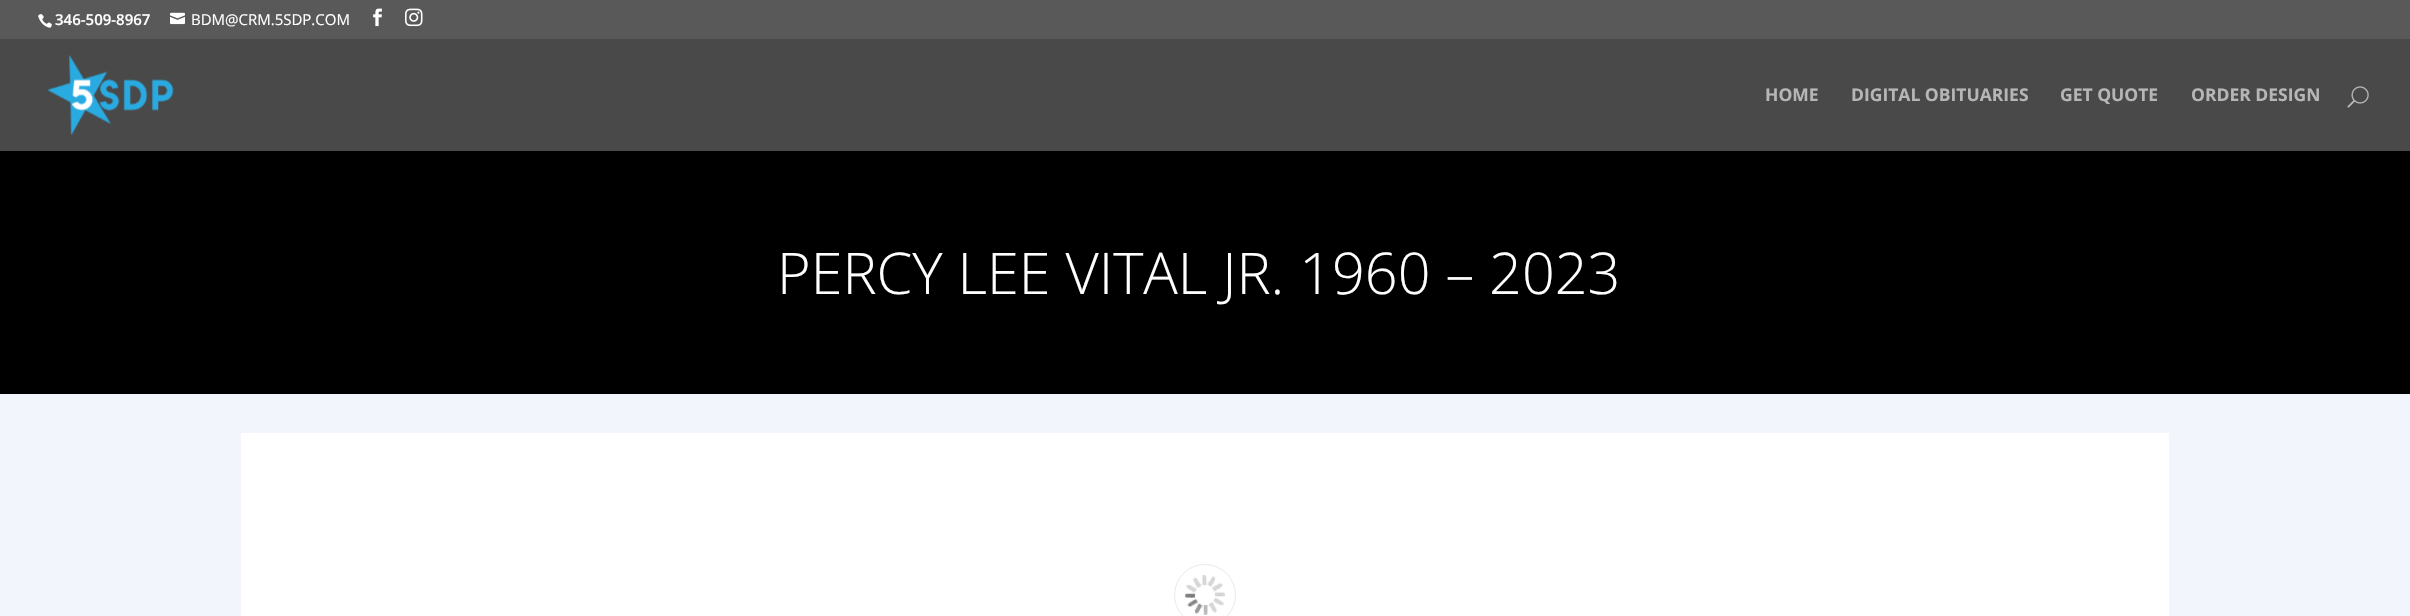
static SkFont makeFont(const char* family, int weight, float size, bool italic = false) {
  SkFontStyle style(weight, SkFontStyle::kNormal_Width,
    italic ? SkFontStyle::kItalic_Slant : SkFontStyle::kUpright_Slant);
  SkFont result(fontMgr->matchFamilyStyle(family, style), size);
  result.setSubpixel(true);
  return result;
}

static void text(SkCanvas* c, const char* s, float x, float y, const SkFont& font, SkColor color) {
  SkPaint ink(SkColor4f::FromColor(color));
  ink.setAntiAlias(true);
  c->drawString(s, x, y, font, ink);
}

static void box(SkCanvas* c, float l, float t, float r, float b, SkColor color) {
  SkPaint ink(SkColor4f::FromColor(color));
  ink.setAntiAlias(true);
  c->drawRect(SkRect::MakeLTRB(l, t, r, b), ink);
}

static void picture(SkCanvas* c, const char* path, float l, float t, float r, float b) {
  auto image = SkImages::DeferredFromEncodedData(SkData::MakeFromFileName(path));
  c->drawImageRect(image, SkRect::MakeLTRB(l, t, r, b), SkSamplingOptions());
}

void draw(SkCanvas* c) {
  SkPaint paint;
  paint.setAntiAlias(true);
  c->clear(0xff000000);
  box(c, 0, 0, 2410, 39, 0xff595959);
  picture(c, "img_01.png", 38, 14, 52, 28);
  SkFont face1 = makeFont("Open Sans", 600, 15);
  text(c, "346-509-8967", 55, 25, face1, 0xffffffff);
  picture(c, "img_02.png", 170, 12, 185, 25);
  SkFont face2 = makeFont("Open Sans", 400, 15);
  text(c, "BDM@CRM.5SDP.COM", 191, 25, face2, 0xffffffff);
  picture(c, "img_03.png", 373, 8, 382, 27);
  picture(c, "img_04.png", 405, 8, 423, 27);
  box(c, 0, 39, 2410, 151, 0xff494949);
  picture(c, "img_05.png", 47, 55, 174, 136);
  SkFont face3 = makeFont("Open Sans", 700, 17.5f);
  text(c, "HOME", 1765, 101, face3, 0xffb6b6b6);
  text(c, "DIGITAL OBITUARIES", 1851, 101, face3, 0xffb6b6b6);
  text(c, "GET QUOTE", 2060, 101, face3, 0xffb6b6b6);
  text(c, "ORDER DESIGN", 2191, 101, face3, 0xffb6b6b6);
  picture(c, "img_06.png", 2347, 86, 2369, 108);
  SkFont face4 = makeFont("Open Sans", 300, 57.5f);
  text(c, "PERCY LEE VITAL JR. 1960 – 2023", 777, 294, face4, 0xffffffff);
  box(c, 0, 394, 2410, 616, 0xfff2f6fc);
  box(c, 241, 433, 2169, 616, 0xffffffff);
  paint.setStyle(SkPaint::kStroke_Style);
  paint.setStrokeWidth(1);
  paint.setColor(0xffeaeaea);
  c->drawCircle(1205, 595, 30.5f, paint);
  picture(c, "img_07.png", 1185, 575, 1225, 615);
}
